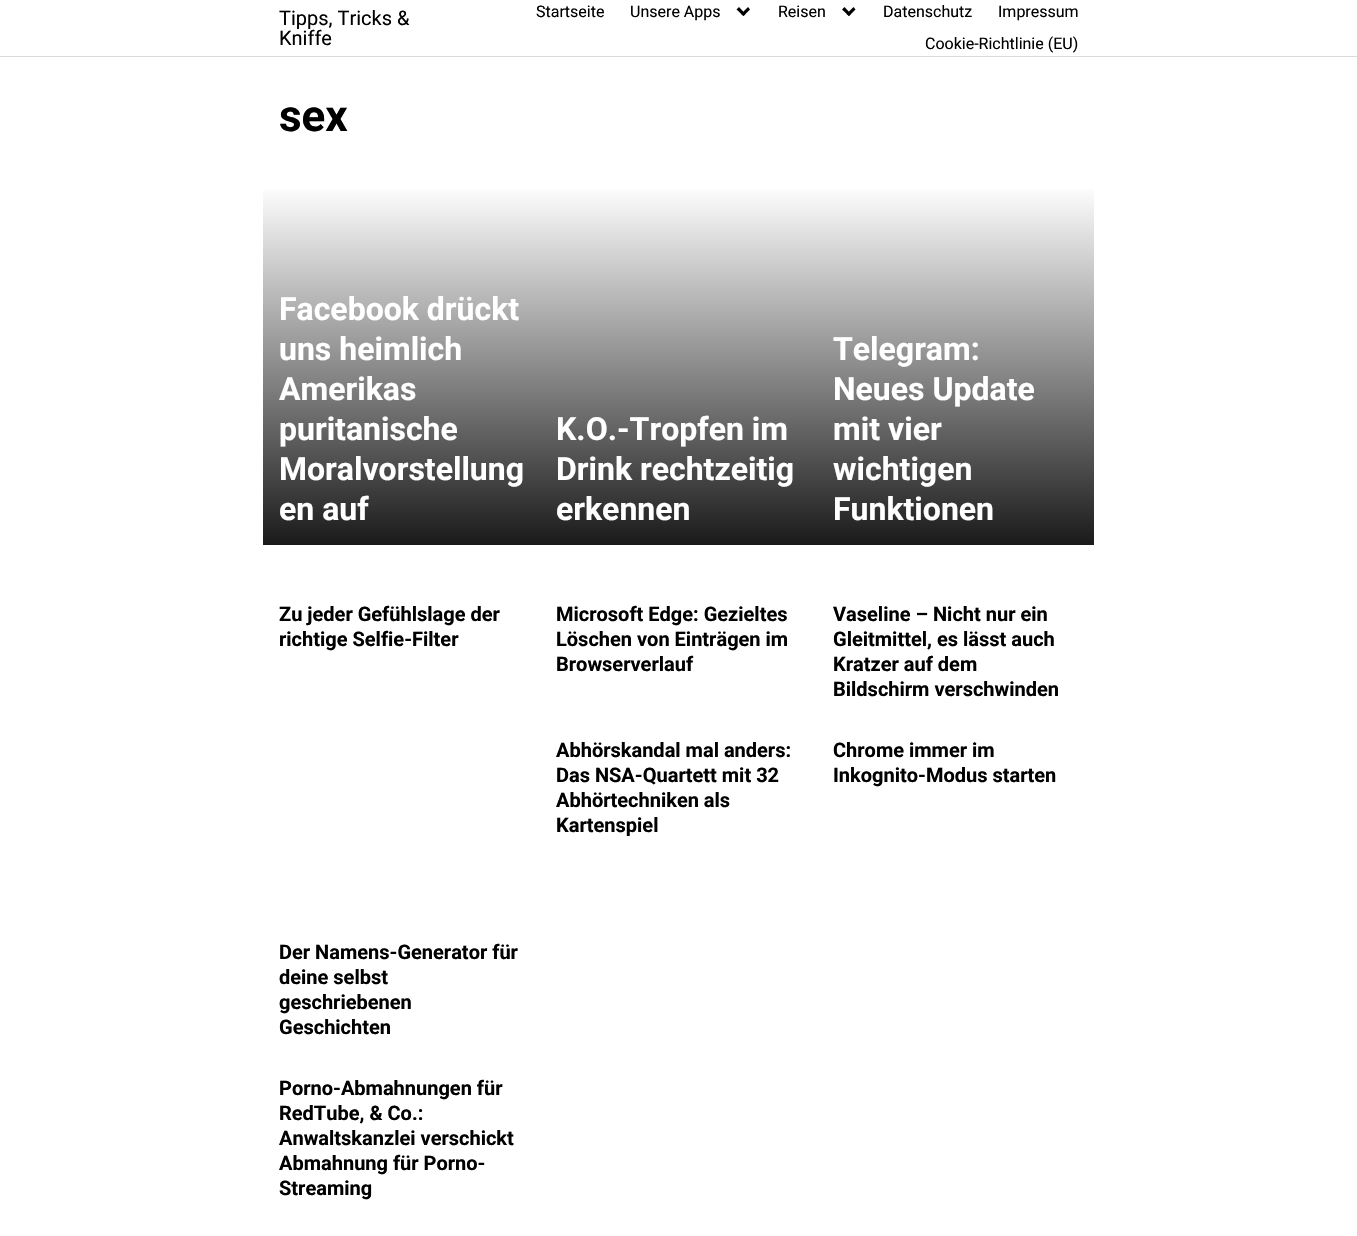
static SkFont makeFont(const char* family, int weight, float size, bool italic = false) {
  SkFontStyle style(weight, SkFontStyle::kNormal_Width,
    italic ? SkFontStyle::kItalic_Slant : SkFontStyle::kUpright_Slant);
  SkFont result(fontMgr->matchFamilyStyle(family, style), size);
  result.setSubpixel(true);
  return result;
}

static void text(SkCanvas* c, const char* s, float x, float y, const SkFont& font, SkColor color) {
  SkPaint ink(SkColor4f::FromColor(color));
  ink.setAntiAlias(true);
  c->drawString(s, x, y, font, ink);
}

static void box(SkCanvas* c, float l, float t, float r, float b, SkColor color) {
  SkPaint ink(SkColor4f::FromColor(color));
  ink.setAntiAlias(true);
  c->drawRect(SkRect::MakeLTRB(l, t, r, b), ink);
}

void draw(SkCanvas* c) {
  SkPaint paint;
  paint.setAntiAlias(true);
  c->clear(0xffffffff);
  box(c, 0, 56, 1357, 57, 0xffdbdbdb);
  SkFont face1 = makeFont("Roboto", 400, 20);
  text(c, "Tipps, Tricks &", 279, 25, face1, 0xff000000);
  text(c, "Kniffe", 279, 45, face1, 0xff000000);
  SkFont face2 = makeFont("Roboto", 400, 16);
  text(c, "Startseite", 536, 17, face2, 0xff000000);
  text(c, "Unsere Apps", 630, 17, face2, 0xff000000);
  paint.setColor(0xff000000);
  c->drawPath(SkPathBuilder().moveTo(736.5f, 9.5f).lineTo(739, 7).lineTo(745.5f, 14).lineTo(743.5f, 16).close().detach(), paint);
  c->drawPath(SkPathBuilder().moveTo(741, 14).lineTo(748, 7).lineTo(750, 9.5f).lineTo(743.5f, 16).close().detach(), paint);
  text(c, "Reisen", 778, 17, face2, 0xff000000);
  c->drawPath(SkPathBuilder().moveTo(842, 9.5f).lineTo(844.5f, 7).lineTo(851, 14).lineTo(849, 16).close().detach(), paint);
  c->drawPath(SkPathBuilder().moveTo(846.5f, 14).lineTo(853.5f, 7).lineTo(855.5f, 9.5f).lineTo(849, 16).close().detach(), paint);
  text(c, "Datenschutz", 883, 17, face2, 0xff000000);
  text(c, "Impressum", 998, 17, face2, 0xff000000);
  text(c, "Cookie-Richtlinie (EU)", 925, 49, face2, 0xff000000);
  SkFont face3 = makeFont("Roboto", 700, 44);
  text(c, "sex", 279, 131, face3, 0xff000000);
  {
    const SkColor colors[] = {0xffffffff, 0xff1a1a1a};
    const float stops[] = {0, 1};
    const SkPoint ends[] = {{402, 185}, {402, 545}};
    paint.setShader(SkGradientShader::MakeLinear(ends, colors, stops, 2, SkTileMode::kClamp));
    paint.setAlpha(255);
  }
  c->drawRect(SkRect::MakeLTRB(263, 189, 540, 545), paint);
  SkFont face4 = makeFont("Roboto", 700, 32);
  text(c, "Facebook drückt", 279, 320, face4, 0xffffffff);
  text(c, "uns heimlich", 279, 360, face4, 0xffffffff);
  text(c, "Amerikas", 279, 400, face4, 0xffffffff);
  text(c, "puritanische", 279, 440, face4, 0xffffffff);
  text(c, "Moralvorstellung", 279, 480, face4, 0xffffffff);
  text(c, "en auf", 279, 520, face4, 0xffffffff);
  {
    const SkColor colors[] = {0xffffffff, 0xff1a1a1a};
    const float stops[] = {0, 1};
    const SkPoint ends[] = {{679, 185}, {679, 545}};
    paint.setShader(SkGradientShader::MakeLinear(ends, colors, stops, 2, SkTileMode::kClamp));
    paint.setAlpha(255);
  }
  c->drawRect(SkRect::MakeLTRB(540, 189, 817, 545), paint);
  text(c, "K.O.-Tropfen im", 556, 440, face4, 0xffffffff);
  text(c, "Drink rechtzeitig", 556, 480, face4, 0xffffffff);
  text(c, "erkennen", 556, 520, face4, 0xffffffff);
  {
    const SkColor colors[] = {0xffffffff, 0xff1a1a1a};
    const float stops[] = {0, 1};
    const SkPoint ends[] = {{956, 185}, {956, 545}};
    paint.setShader(SkGradientShader::MakeLinear(ends, colors, stops, 2, SkTileMode::kClamp));
    paint.setAlpha(255);
  }
  c->drawRect(SkRect::MakeLTRB(817, 189, 1094, 545), paint);
  text(c, "Telegram:", 833, 360, face4, 0xffffffff);
  text(c, "Neues Update", 833, 400, face4, 0xffffffff);
  text(c, "mit vier", 833, 440, face4, 0xffffffff);
  text(c, "wichtigen", 833, 480, face4, 0xffffffff);
  text(c, "Funktionen", 833, 520, face4, 0xffffffff);
  SkFont face5 = makeFont("Roboto", 700, 20);
  text(c, "Zu jeder Gefühlslage der", 279, 621, face5, 0xff000000);
  text(c, "richtige Selfie-Filter", 279, 646, face5, 0xff000000);
  text(c, "Microsoft Edge: Gezieltes", 556, 621, face5, 0xff000000);
  text(c, "Löschen von Einträgen im", 556, 646, face5, 0xff000000);
  text(c, "Browserverlauf", 556, 671, face5, 0xff000000);
  text(c, "Vaseline – Nicht nur ein", 833, 621, face5, 0xff000000);
  text(c, "Gleitmittel, es lässt auch", 833, 646, face5, 0xff000000);
  text(c, "Kratzer auf dem", 833, 671, face5, 0xff000000);
  text(c, "Bildschirm verschwinden", 833, 696, face5, 0xff000000);
  text(c, "Abhörskandal mal anders:", 556, 757, face5, 0xff000000);
  text(c, "Das NSA-Quartett mit 32", 556, 782, face5, 0xff000000);
  text(c, "Abhörtechniken als", 556, 807, face5, 0xff000000);
  text(c, "Kartenspiel", 556, 832, face5, 0xff000000);
  text(c, "Chrome immer im", 833, 757, face5, 0xff000000);
  text(c, "Inkognito-Modus starten", 833, 782, face5, 0xff000000);
  text(c, "Der Namens-Generator für", 279, 959, face5, 0xff000000);
  text(c, "deine selbst", 279, 984, face5, 0xff000000);
  text(c, "geschriebenen", 279, 1009, face5, 0xff000000);
  text(c, "Geschichten", 279, 1034, face5, 0xff000000);
  text(c, "Porno-Abmahnungen für", 279, 1095, face5, 0xff000000);
  text(c, "RedTube, & Co.:", 279, 1120, face5, 0xff000000);
  text(c, "Anwaltskanzlei verschickt", 279, 1145, face5, 0xff000000);
  text(c, "Abmahnung für Porno-", 279, 1170, face5, 0xff000000);
  text(c, "Streaming", 279, 1195, face5, 0xff000000);
}
